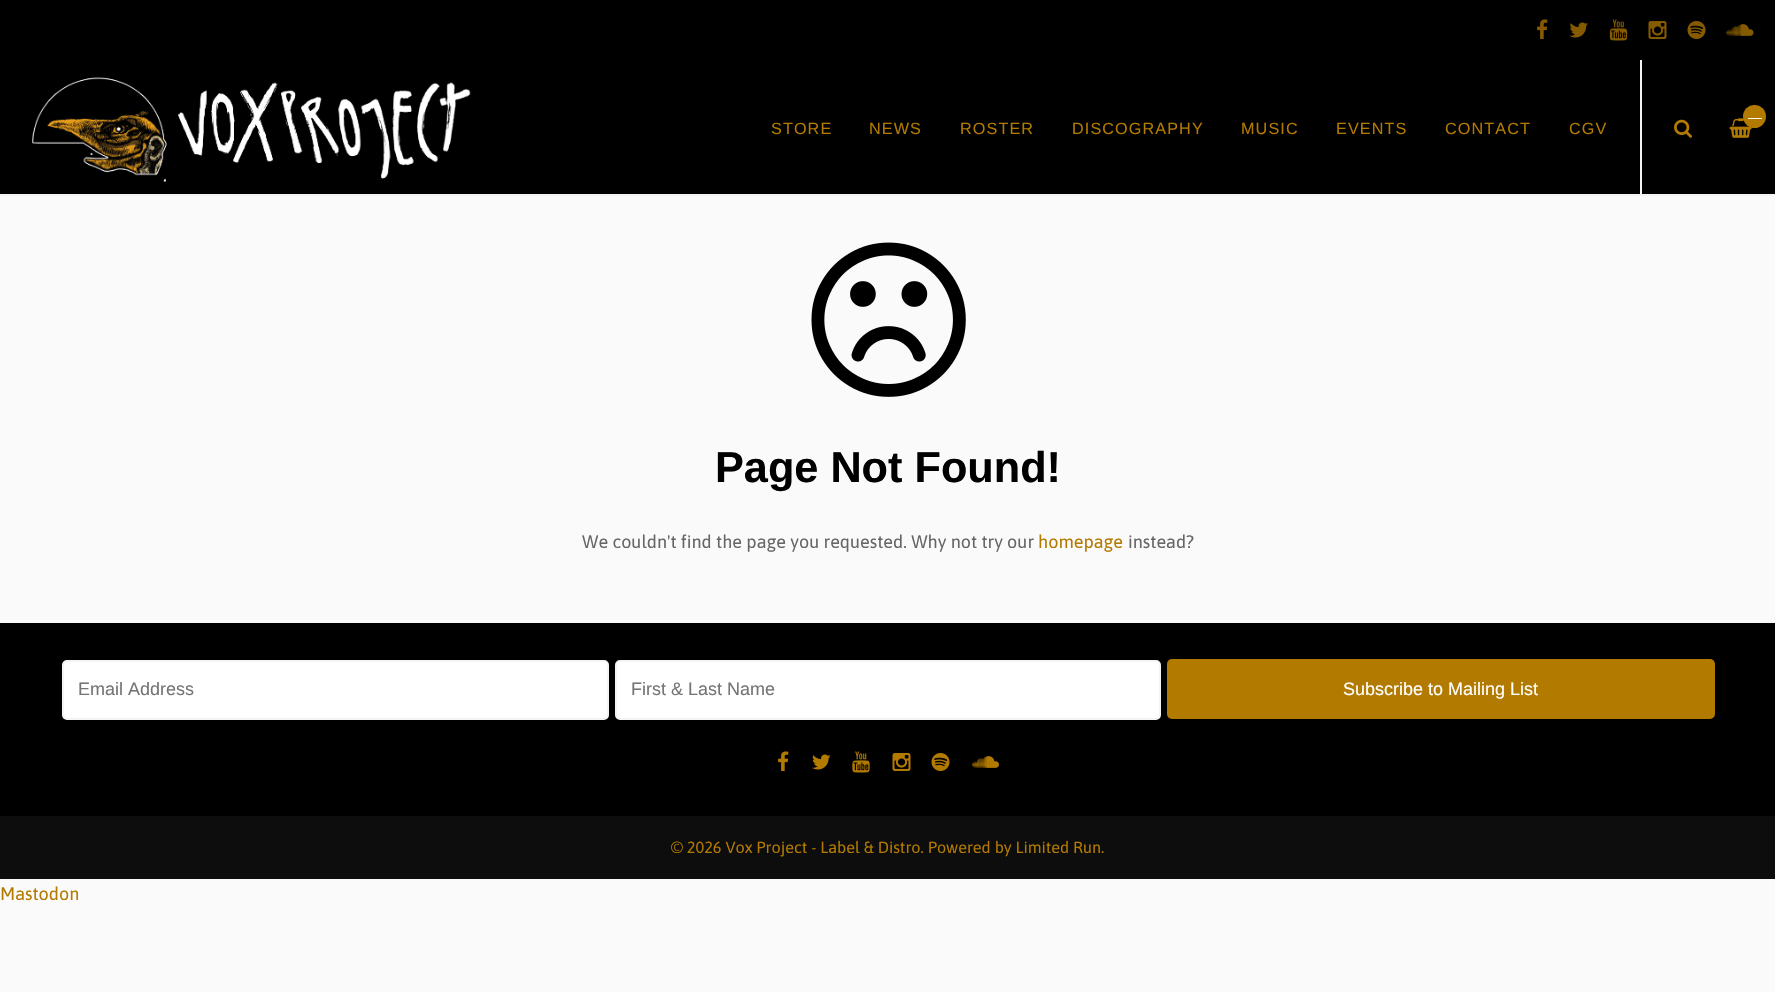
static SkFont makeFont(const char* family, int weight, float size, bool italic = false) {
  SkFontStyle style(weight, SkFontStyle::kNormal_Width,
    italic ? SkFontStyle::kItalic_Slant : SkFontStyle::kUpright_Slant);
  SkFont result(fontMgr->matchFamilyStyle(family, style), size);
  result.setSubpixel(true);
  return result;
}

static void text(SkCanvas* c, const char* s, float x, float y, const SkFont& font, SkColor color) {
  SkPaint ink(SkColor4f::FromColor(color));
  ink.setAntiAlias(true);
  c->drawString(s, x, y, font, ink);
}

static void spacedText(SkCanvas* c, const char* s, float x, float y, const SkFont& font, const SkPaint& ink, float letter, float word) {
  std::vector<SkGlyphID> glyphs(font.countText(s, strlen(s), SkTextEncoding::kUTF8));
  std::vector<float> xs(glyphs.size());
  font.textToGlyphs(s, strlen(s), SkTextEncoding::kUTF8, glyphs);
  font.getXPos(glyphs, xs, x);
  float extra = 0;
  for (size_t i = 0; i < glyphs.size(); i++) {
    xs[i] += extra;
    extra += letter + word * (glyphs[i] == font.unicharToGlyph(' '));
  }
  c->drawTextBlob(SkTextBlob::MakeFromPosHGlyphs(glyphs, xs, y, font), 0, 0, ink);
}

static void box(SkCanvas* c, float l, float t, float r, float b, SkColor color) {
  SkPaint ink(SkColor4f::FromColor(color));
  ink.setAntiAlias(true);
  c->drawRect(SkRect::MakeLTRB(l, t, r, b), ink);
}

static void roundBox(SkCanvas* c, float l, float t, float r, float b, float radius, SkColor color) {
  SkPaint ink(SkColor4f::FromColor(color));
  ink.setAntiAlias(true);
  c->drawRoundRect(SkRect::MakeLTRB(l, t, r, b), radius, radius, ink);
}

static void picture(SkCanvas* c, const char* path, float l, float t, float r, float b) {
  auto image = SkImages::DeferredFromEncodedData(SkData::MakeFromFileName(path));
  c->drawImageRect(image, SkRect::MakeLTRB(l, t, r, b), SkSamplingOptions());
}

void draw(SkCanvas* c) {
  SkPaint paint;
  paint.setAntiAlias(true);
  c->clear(0xfffafafa);
  box(c, 0, 0, 1775, 194, 0xff000000);
  picture(c, "img_01.png", 1537, 19, 1548, 39);
  picture(c, "img_02.png", 1569, 22, 1588, 38);
  picture(c, "img_03.png", 1609, 19, 1628, 41);
  picture(c, "img_04.png", 1648, 21, 1667, 39);
  picture(c, "img_05.png", 1687, 21, 1706, 39);
  picture(c, "img_06.png", 1726, 24, 1754, 36);
  box(c, 0, 194, 1775, 196, 0xfff4f4f4);
  picture(c, "img_07.png", 31, 77, 471, 182);
  box(c, 1640, 60, 1642, 195, 0xfff4f4f4);
  picture(c, "img_08.png", 1674, 119, 1692, 138);
  picture(c, "img_09.png", 1729, 118, 1752, 138);
  paint.setColor(0xffb37a00);
  c->drawCircle(1754.5f, 116.5f, 11.5f, paint);
  SkFont face1 = makeFont("Liberation Sans", 400, 14);
  paint.setColor(0xffffffff);
  spacedText(c, "—", 1748, 122, face1, paint, 1.1f, 0);
  SkFont face2 = makeFont("Liberation Sans", 400, 16.2f);
  paint.setColor(0xffb37a00);
  spacedText(c, "STORE", 771, 134, face2, paint, 1.1f, 0);
  spacedText(c, "NEWS", 869, 134, face2, paint, 1.1f, 0);
  spacedText(c, "ROSTER", 960, 134, face2, paint, 1.1f, 0);
  spacedText(c, "DISCOGRAPHY", 1072, 134, face2, paint, 1.1f, 0);
  spacedText(c, "MUSIC", 1241, 134, face2, paint, 1.1f, 0);
  spacedText(c, "EVENTS", 1336, 134, face2, paint, 1.1f, 0);
  spacedText(c, "CONTACT", 1445, 134, face2, paint, 1.1f, 0);
  spacedText(c, "CGV", 1569, 134, face2, paint, 1.1f, 0);
  picture(c, "img_10.png", 811, 242, 966, 397);
  SkFont face3 = makeFont("Liberation Sans", 700, 43.25f);
  text(c, "Page Not Found!", 715, 482, face3, 0xff000000);
  SkFont face4 = makeFont("Asap", 400, 18);
  text(c, "We couldn't find the page you requested. Why not try our", 582, 548, face4, 0xff666666);
  text(c, "homepage", 1038, 548, face4, 0xffb37a00);
  text(c, "instead?", 1128, 548, face4, 0xff666666);
  box(c, 0, 623, 1775, 816, 0xff000000);
  paint.setColor(0xffffffff);
  c->drawRoundRect(SkRect::MakeLTRB(63, 661, 608, 719), 4, 4, paint);
  paint.setStyle(SkPaint::kStroke_Style);
  paint.setStrokeWidth(2);
  paint.setColor(0xfff4f4f4);
  c->drawRoundRect(SkRect::MakeLTRB(63, 661, 608, 719), 4, 4, paint);
  SkFont face5 = makeFont("Liberation Sans", 400, 18);
  text(c, "Email Address", 78, 695, face5, 0xff757575);
  paint.setStyle(SkPaint::kFill_Style);
  paint.setColor(0xffffffff);
  c->drawRoundRect(SkRect::MakeLTRB(616, 661, 1160, 719), 4, 4, paint);
  paint.setStyle(SkPaint::kStroke_Style);
  paint.setColor(0xfff4f4f4);
  c->drawRoundRect(SkRect::MakeLTRB(616, 661, 1160, 719), 4, 4, paint);
  text(c, "First & Last Name", 631, 695, face5, 0xff757575);
  roundBox(c, 1167, 659, 1715, 719, 5, 0xffb37a00);
  text(c, "Subscribe to Mailing List", 1343, 695, face5, 0xffffffff);
  picture(c, "img_11.png", 778, 751, 789, 771);
  picture(c, "img_12.png", 812, 754, 831, 770);
  picture(c, "img_13.png", 852, 751, 870, 773);
  picture(c, "img_14.png", 892, 753, 911, 771);
  picture(c, "img_15.png", 931, 753, 950, 771);
  picture(c, "img_16.png", 972, 756, 999, 768);
  box(c, 0, 816, 1775, 879, 0xff0d0d0d);
  SkFont face6 = makeFont("Asap", 400, 16.2f);
  text(c, "© 2026 Vox Project - Label & Distro. Powered by Limited Run.", 671, 853, face6, 0xffb37a00);
  text(c, "Mastodon", 0, 900, face4, 0xffb37a00);
}
